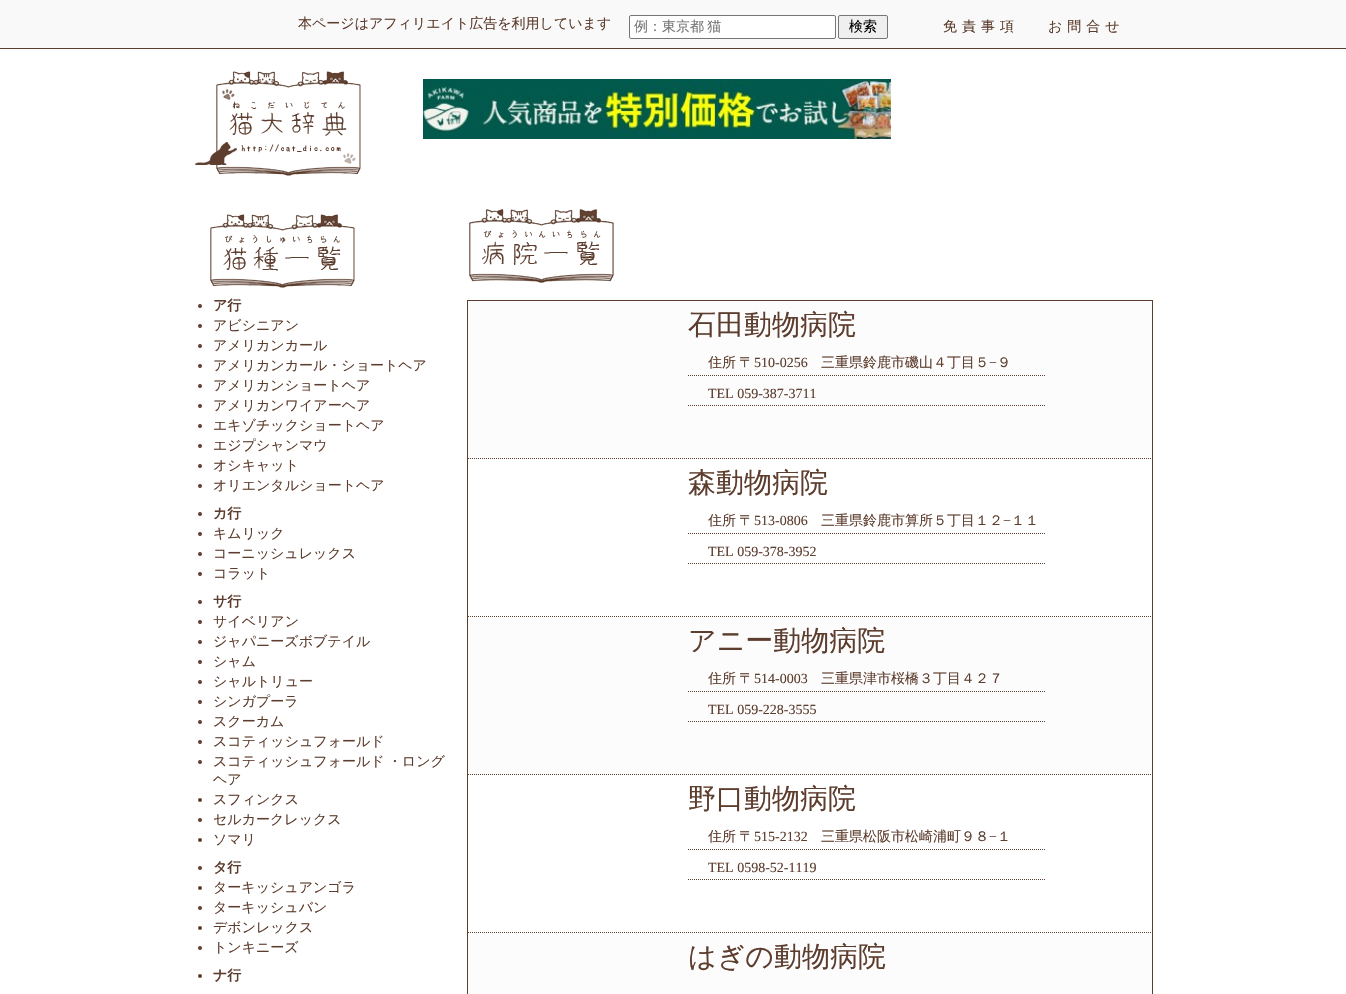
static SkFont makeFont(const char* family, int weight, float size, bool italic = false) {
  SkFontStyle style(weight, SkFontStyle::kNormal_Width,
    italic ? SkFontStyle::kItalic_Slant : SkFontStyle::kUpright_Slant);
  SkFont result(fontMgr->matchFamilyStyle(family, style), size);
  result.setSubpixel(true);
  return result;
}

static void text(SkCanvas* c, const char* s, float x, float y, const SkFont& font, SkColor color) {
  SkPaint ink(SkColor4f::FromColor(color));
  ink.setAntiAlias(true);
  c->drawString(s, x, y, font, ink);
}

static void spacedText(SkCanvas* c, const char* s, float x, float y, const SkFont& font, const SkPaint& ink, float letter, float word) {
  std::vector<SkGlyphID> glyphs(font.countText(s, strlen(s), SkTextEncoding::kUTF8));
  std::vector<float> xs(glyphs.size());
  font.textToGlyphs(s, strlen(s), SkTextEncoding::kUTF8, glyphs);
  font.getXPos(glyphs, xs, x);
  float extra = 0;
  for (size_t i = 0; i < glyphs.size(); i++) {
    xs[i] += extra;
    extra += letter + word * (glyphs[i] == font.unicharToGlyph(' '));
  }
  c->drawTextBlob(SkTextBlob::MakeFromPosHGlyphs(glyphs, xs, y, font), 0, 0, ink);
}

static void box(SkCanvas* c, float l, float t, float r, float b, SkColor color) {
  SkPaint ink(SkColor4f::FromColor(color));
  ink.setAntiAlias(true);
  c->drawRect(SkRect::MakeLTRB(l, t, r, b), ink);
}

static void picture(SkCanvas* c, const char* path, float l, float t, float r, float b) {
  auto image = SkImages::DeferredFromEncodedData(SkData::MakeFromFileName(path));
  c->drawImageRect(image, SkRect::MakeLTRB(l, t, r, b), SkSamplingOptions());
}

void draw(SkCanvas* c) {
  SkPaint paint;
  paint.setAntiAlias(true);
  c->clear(0xffffffff);
  box(c, 0, 0, 1346, 48, 0xfff9f9f9);
  box(c, 0, 48, 1346, 49, 0xff5d3d2e);
  SkFont face1 = makeFont("WenQuanYi Zen Hei", 500, 14);
  text(c, "本ページはアフィリエイト広告を利用しています", 298, 28, face1, 0xff5d3d2e);
  paint.setColor(0xffffffff);
  c->drawRoundRect(SkRect::MakeLTRB(629.5f, 15.5f, 835.5f, 38.5f), 1.5f, 1.5f, paint);
  paint.setStyle(SkPaint::kStroke_Style);
  paint.setStrokeWidth(1);
  paint.setColor(0xff767676);
  c->drawRoundRect(SkRect::MakeLTRB(629.5f, 15.5f, 835.5f, 38.5f), 1.5f, 1.5f, paint);
  paint.setStyle(SkPaint::kFill_Style);
  paint.setColor(0xff757575);
  spacedText(c, "例：東京都 猫", 634, 31, face1, paint, 0, -1);
  paint.setColor(0xffefefef);
  c->drawRoundRect(SkRect::MakeLTRB(838.5f, 15.5f, 887.5f, 38.5f), 1.5f, 1.5f, paint);
  paint.setStyle(SkPaint::kStroke_Style);
  paint.setColor(0xff767676);
  c->drawRoundRect(SkRect::MakeLTRB(838.5f, 15.5f, 887.5f, 38.5f), 1.5f, 1.5f, paint);
  text(c, "検索", 849, 31, face1, 0xff000000);
  paint.setStyle(SkPaint::kFill_Style);
  paint.setColor(0xff5d3d2e);
  spacedText(c, "免責事項", 943, 31, face1, paint, 5, 0);
  spacedText(c, "お問合せ", 1048, 31, face1, paint, 5, 0);
  picture(c, "img_01.png", 195, 71, 361, 176);
  picture(c, "img_02.png", 423, 79, 891, 139);
  picture(c, "img_03.png", 210, 214, 355, 288);
  c->drawCircle(200, 306, 2, paint);
  SkFont face2 = makeFont("WenQuanYi Zen Hei", 700, 14);
  text(c, "ア行", 213, 310, face2, 0xff5d3d2e);
  c->drawCircle(200, 326, 2, paint);
  text(c, "アビシニアン", 213, 330, face1, 0xff5d3d2e);
  c->drawCircle(200, 346, 2, paint);
  text(c, "アメリカンカール", 213, 350, face1, 0xff5d3d2e);
  c->drawCircle(200, 366, 2, paint);
  text(c, "アメリカンカール・ショートヘア", 213, 370, face1, 0xff5d3d2e);
  c->drawCircle(200, 386, 2, paint);
  text(c, "アメリカンショートヘア", 213, 390, face1, 0xff5d3d2e);
  c->drawCircle(200, 406, 2, paint);
  text(c, "アメリカンワイアーヘア", 213, 410, face1, 0xff5d3d2e);
  c->drawCircle(200, 426, 2, paint);
  text(c, "エキゾチックショートヘア", 213, 430, face1, 0xff5d3d2e);
  c->drawCircle(200, 446, 2, paint);
  text(c, "エジプシャンマウ", 213, 450, face1, 0xff5d3d2e);
  c->drawCircle(200, 466, 2, paint);
  text(c, "オシキャット", 213, 470, face1, 0xff5d3d2e);
  c->drawCircle(200, 486, 2, paint);
  text(c, "オリエンタルショートヘア", 213, 490, face1, 0xff5d3d2e);
  c->drawCircle(200, 514, 2, paint);
  text(c, "カ行", 213, 518, face2, 0xff5d3d2e);
  c->drawCircle(200, 534, 2, paint);
  text(c, "キムリック", 213, 538, face1, 0xff5d3d2e);
  c->drawCircle(200, 554, 2, paint);
  text(c, "コーニッシュレックス", 213, 558, face1, 0xff5d3d2e);
  c->drawCircle(200, 574, 2, paint);
  text(c, "コラット", 213, 578, face1, 0xff5d3d2e);
  c->drawCircle(200, 602, 2, paint);
  text(c, "サ行", 213, 606, face2, 0xff5d3d2e);
  c->drawCircle(200, 622, 2, paint);
  text(c, "サイベリアン", 213, 626, face1, 0xff5d3d2e);
  c->drawCircle(200, 642, 2, paint);
  text(c, "ジャパニーズボブテイル", 213, 646, face1, 0xff5d3d2e);
  c->drawCircle(200, 662, 2, paint);
  text(c, "シャム", 213, 666, face1, 0xff5d3d2e);
  c->drawCircle(200, 682, 2, paint);
  text(c, "シャルトリュー", 213, 686, face1, 0xff5d3d2e);
  c->drawCircle(200, 702, 2, paint);
  text(c, "シンガプーラ", 213, 706, face1, 0xff5d3d2e);
  c->drawCircle(200, 722, 2, paint);
  text(c, "スクーカム", 213, 726, face1, 0xff5d3d2e);
  c->drawCircle(200, 742, 2, paint);
  text(c, "スコティッシュフォールド", 213, 746, face1, 0xff5d3d2e);
  c->drawCircle(200, 762, 2, paint);
  spacedText(c, "スコティッシュフォールド ・ロング", 213, 766, face1, paint, 0, -1);
  text(c, "ヘア", 213, 784, face1, 0xff5d3d2e);
  c->drawCircle(200, 800, 2, paint);
  text(c, "スフィンクス", 213, 804, face1, 0xff5d3d2e);
  c->drawCircle(200, 820, 2, paint);
  text(c, "セルカークレックス", 213, 824, face1, 0xff5d3d2e);
  c->drawCircle(200, 840, 2, paint);
  text(c, "ソマリ", 213, 844, face1, 0xff5d3d2e);
  c->drawCircle(200, 868, 2, paint);
  text(c, "タ行", 213, 872, face2, 0xff5d3d2e);
  c->drawCircle(200, 888, 2, paint);
  text(c, "ターキッシュアンゴラ", 213, 892, face1, 0xff5d3d2e);
  c->drawCircle(200, 908, 2, paint);
  text(c, "ターキッシュバン", 213, 912, face1, 0xff5d3d2e);
  c->drawCircle(200, 928, 2, paint);
  text(c, "デボンレックス", 213, 932, face1, 0xff5d3d2e);
  c->drawCircle(200, 948, 2, paint);
  text(c, "トンキニーズ", 213, 952, face1, 0xff5d3d2e);
  c->drawCircle(200, 976, 2, paint);
  text(c, "ナ行", 213, 980, face2, 0xff5d3d2e);
  picture(c, "img_04.png", 469, 209, 614, 283);
  paint.setStyle(SkPaint::kStroke_Style);
  c->drawRect(SkRect::MakeLTRB(467.5f, 300.5f, 1152.5f, 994.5f), paint);
  box(c, 468, 301, 1152, 459, 0xfffcfcfc);
  paint.setPathEffect(SkDashPathEffect::Make({{1, 1}}, 0));
  c->drawPath(SkPathBuilder().moveTo(468, 458.5f).lineTo(1152, 458.5f).detach(), paint);
  paint.setPathEffect(nullptr);
  SkFont face3 = makeFont("WenQuanYi Zen Hei", 500, 28);
  text(c, "石田動物病院", 688, 334, face3, 0xff5d3d2e);
  paint.setPathEffect(SkDashPathEffect::Make({{1, 1}}, 0));
  c->drawPath(SkPathBuilder().moveTo(688, 375.5f).lineTo(1046, 375.5f).detach(), paint);
  paint.setPathEffect(nullptr);
  paint.setStyle(SkPaint::kFill_Style);
  spacedText(c, "住所 〒", 708, 367, face1, paint, 0, -1);
  SkFont face4 = makeFont("Liberation Serif", 400, 14);
  text(c, "510-0256", 754, 367, face4, 0xff5d3d2e);
  text(c, "三重県鈴鹿市磯山４丁目５", 821, 367, face1, 0xff5d3d2e);
  text(c, "−", 989, 367, face4, 0xff5d3d2e);
  text(c, "９", 997, 367, face1, 0xff5d3d2e);
  paint.setStyle(SkPaint::kStroke_Style);
  paint.setPathEffect(SkDashPathEffect::Make({{1, 1}}, 0));
  c->drawPath(SkPathBuilder().moveTo(688, 405.5f).lineTo(1046, 405.5f).detach(), paint);
  paint.setPathEffect(nullptr);
  text(c, "TEL 059-387-3711", 708, 398, face4, 0xff5d3d2e);
  paint.setPathEffect(SkDashPathEffect::Make({{1, 1}}, 0));
  c->drawPath(SkPathBuilder().moveTo(468, 616.5f).lineTo(1152, 616.5f).detach(), paint);
  paint.setPathEffect(nullptr);
  text(c, "森動物病院", 688, 492, face3, 0xff5d3d2e);
  paint.setPathEffect(SkDashPathEffect::Make({{1, 1}}, 0));
  c->drawPath(SkPathBuilder().moveTo(688, 533.5f).lineTo(1046, 533.5f).detach(), paint);
  paint.setPathEffect(nullptr);
  paint.setStyle(SkPaint::kFill_Style);
  spacedText(c, "住所 〒", 708, 525, face1, paint, 0, -1);
  text(c, "513-0806", 754, 525, face4, 0xff5d3d2e);
  text(c, "三重県鈴鹿市算所５丁目１２", 821, 525, face1, 0xff5d3d2e);
  text(c, "−", 1003, 525, face4, 0xff5d3d2e);
  text(c, "１１", 1011, 525, face1, 0xff5d3d2e);
  paint.setStyle(SkPaint::kStroke_Style);
  paint.setPathEffect(SkDashPathEffect::Make({{1, 1}}, 0));
  c->drawPath(SkPathBuilder().moveTo(688, 563.5f).lineTo(1046, 563.5f).detach(), paint);
  paint.setPathEffect(nullptr);
  text(c, "TEL 059-378-3952", 708, 556, face4, 0xff5d3d2e);
  box(c, 468, 617, 1152, 775, 0xfffcfcfc);
  paint.setPathEffect(SkDashPathEffect::Make({{1, 1}}, 0));
  c->drawPath(SkPathBuilder().moveTo(468, 774.5f).lineTo(1152, 774.5f).detach(), paint);
  paint.setPathEffect(nullptr);
  text(c, "アニー動物病院", 688, 650, face3, 0xff5d3d2e);
  paint.setPathEffect(SkDashPathEffect::Make({{1, 1}}, 0));
  c->drawPath(SkPathBuilder().moveTo(688, 691.5f).lineTo(1046, 691.5f).detach(), paint);
  paint.setPathEffect(nullptr);
  paint.setStyle(SkPaint::kFill_Style);
  spacedText(c, "住所 〒", 708, 683, face1, paint, 0, -1);
  text(c, "514-0003", 754, 683, face4, 0xff5d3d2e);
  text(c, "三重県津市桜橋３丁目４２７", 821, 683, face1, 0xff5d3d2e);
  paint.setStyle(SkPaint::kStroke_Style);
  paint.setPathEffect(SkDashPathEffect::Make({{1, 1}}, 0));
  c->drawPath(SkPathBuilder().moveTo(688, 721.5f).lineTo(1046, 721.5f).detach(), paint);
  paint.setPathEffect(nullptr);
  text(c, "TEL 059-228-3555", 708, 714, face4, 0xff5d3d2e);
  paint.setPathEffect(SkDashPathEffect::Make({{1, 1}}, 0));
  c->drawPath(SkPathBuilder().moveTo(468, 932.5f).lineTo(1152, 932.5f).detach(), paint);
  paint.setPathEffect(nullptr);
  text(c, "野口動物病院", 688, 808, face3, 0xff5d3d2e);
  paint.setPathEffect(SkDashPathEffect::Make({{1, 1}}, 0));
  c->drawPath(SkPathBuilder().moveTo(688, 849.5f).lineTo(1046, 849.5f).detach(), paint);
  paint.setPathEffect(nullptr);
  paint.setStyle(SkPaint::kFill_Style);
  spacedText(c, "住所 〒", 708, 841, face1, paint, 0, -1);
  text(c, "515-2132", 754, 841, face4, 0xff5d3d2e);
  text(c, "三重県松阪市松崎浦町９８", 821, 841, face1, 0xff5d3d2e);
  text(c, "−", 989, 841, face4, 0xff5d3d2e);
  text(c, "１", 997, 841, face1, 0xff5d3d2e);
  paint.setStyle(SkPaint::kStroke_Style);
  paint.setPathEffect(SkDashPathEffect::Make({{1, 1}}, 0));
  c->drawPath(SkPathBuilder().moveTo(688, 879.5f).lineTo(1046, 879.5f).detach(), paint);
  paint.setPathEffect(nullptr);
  text(c, "TEL 0598-52-1119", 708, 872, face4, 0xff5d3d2e);
  box(c, 468, 933, 1152, 994, 0xfffcfcfc);
  text(c, "はぎの動物病院", 688, 966, face3, 0xff5d3d2e);
}
